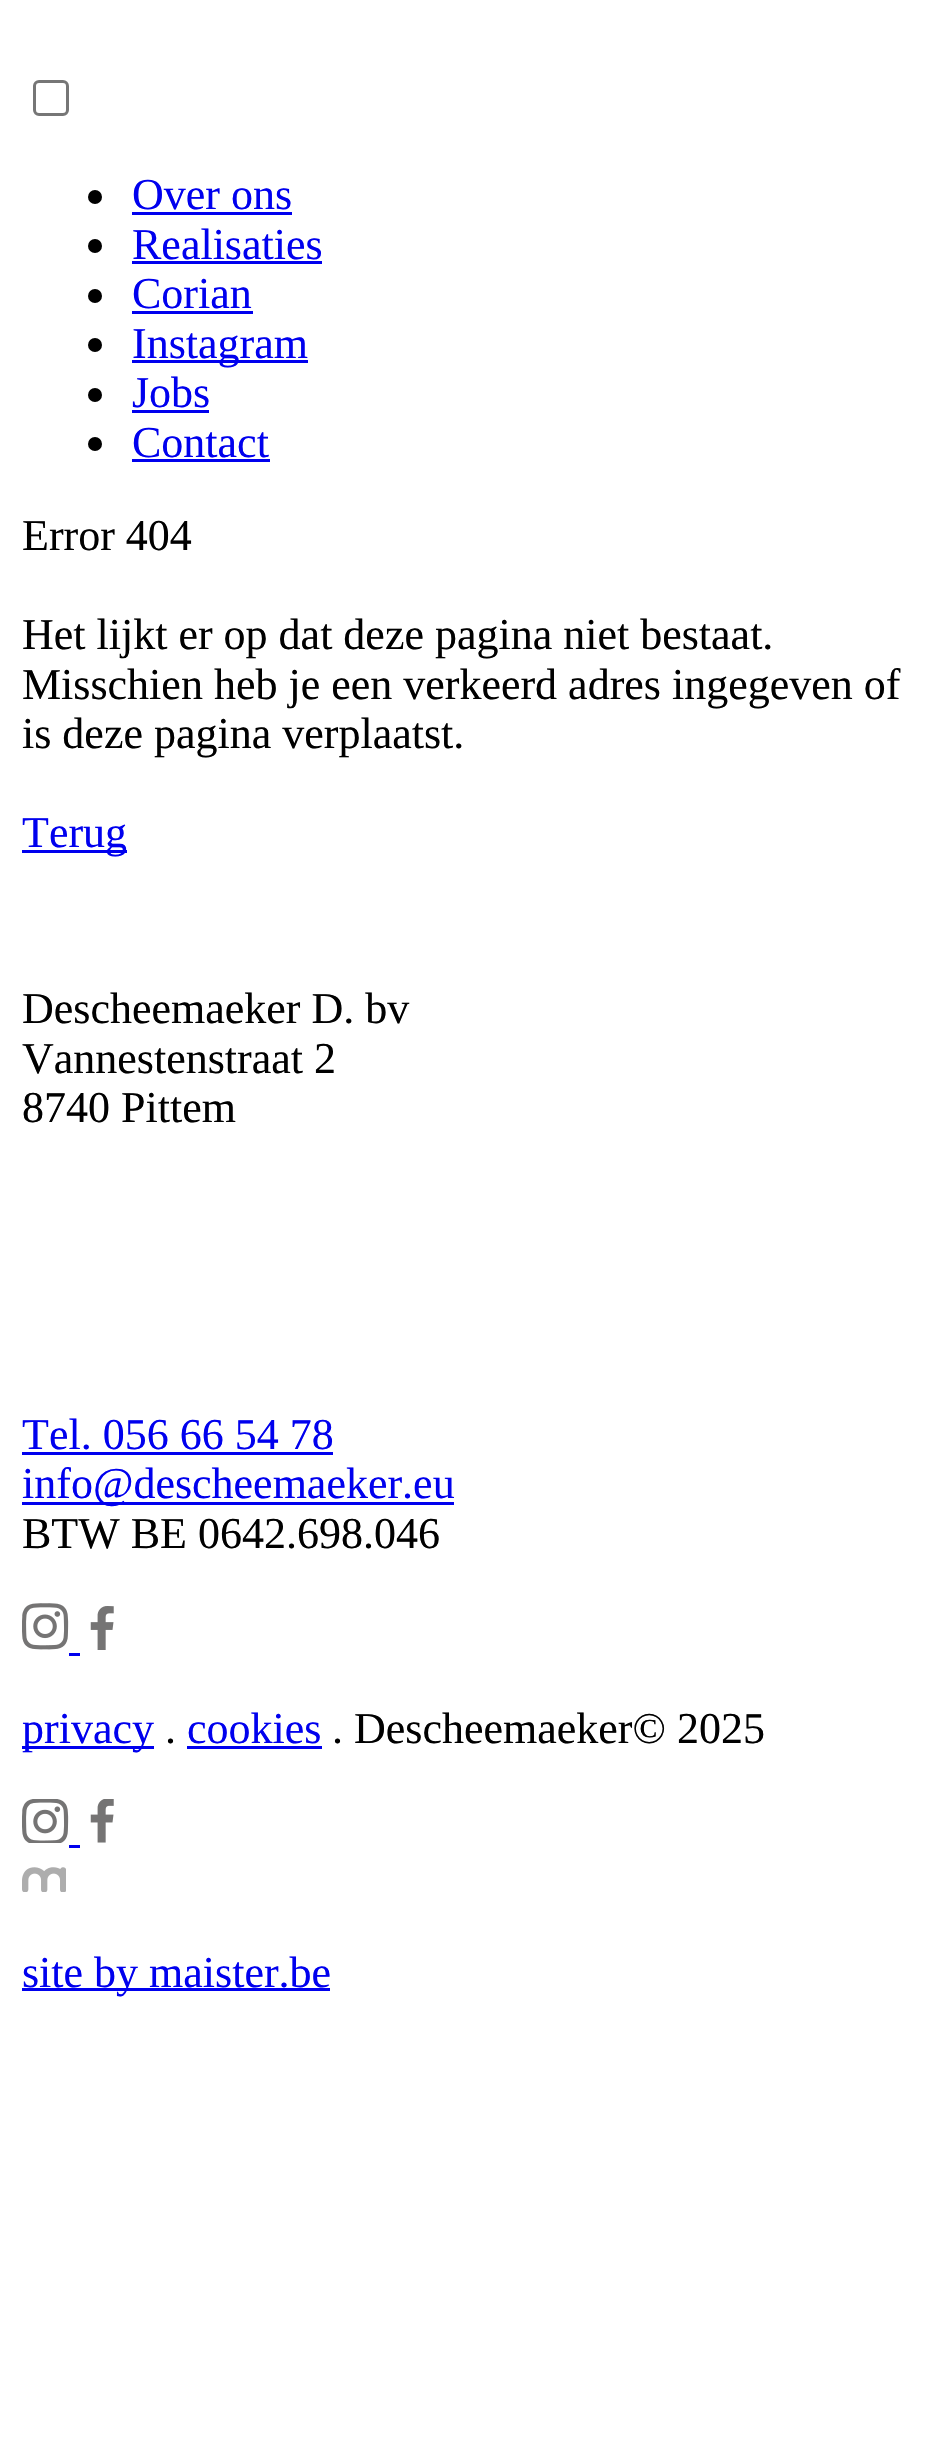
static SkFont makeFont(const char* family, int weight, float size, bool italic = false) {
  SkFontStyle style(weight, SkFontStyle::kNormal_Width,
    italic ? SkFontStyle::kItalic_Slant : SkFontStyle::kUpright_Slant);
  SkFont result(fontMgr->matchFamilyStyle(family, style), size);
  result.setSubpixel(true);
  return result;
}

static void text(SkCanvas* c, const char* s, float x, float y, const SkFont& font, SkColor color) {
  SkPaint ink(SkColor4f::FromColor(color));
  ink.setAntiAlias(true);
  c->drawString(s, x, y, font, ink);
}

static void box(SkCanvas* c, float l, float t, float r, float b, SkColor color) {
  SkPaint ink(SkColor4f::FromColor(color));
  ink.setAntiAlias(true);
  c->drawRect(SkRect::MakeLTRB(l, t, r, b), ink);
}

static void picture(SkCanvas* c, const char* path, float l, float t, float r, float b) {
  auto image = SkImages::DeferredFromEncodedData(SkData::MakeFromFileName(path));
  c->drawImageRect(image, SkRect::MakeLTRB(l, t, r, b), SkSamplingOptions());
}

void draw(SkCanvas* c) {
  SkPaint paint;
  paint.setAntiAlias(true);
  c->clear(0xffffffff);
  paint.setStyle(SkPaint::kStroke_Style);
  paint.setStrokeWidth(3);
  paint.setColor(0xff767676);
  c->drawRoundRect(SkRect::MakeLTRB(34.5f, 81.5f, 67.5f, 114.5f), 4.5f, 4.5f, paint);
  paint.setStyle(SkPaint::kFill_Style);
  paint.setColor(0xff000000);
  c->drawCircle(95, 197, 7, paint);
  SkFont face1 = makeFont("Liberation Serif", 400, 44);
  text(c, "Over ons", 132, 209, face1, 0xff0000ee);
  box(c, 132, 212, 292, 215, 0xff0000ee);
  c->drawCircle(95, 246, 7, paint);
  text(c, "Realisaties", 132, 259, face1, 0xff0000ee);
  box(c, 132, 261, 322, 264, 0xff0000ee);
  c->drawCircle(95, 296, 7, paint);
  text(c, "Corian", 132, 308, face1, 0xff0000ee);
  box(c, 132, 311, 253, 314, 0xff0000ee);
  c->drawCircle(95, 345, 7, paint);
  box(c, 132, 360, 308, 363, 0xff0000ee);
  text(c, "Instagram", 132, 358, face1, 0xff0000ee);
  c->drawCircle(95, 395, 7, paint);
  text(c, "Jobs", 132, 407, face1, 0xff0000ee);
  box(c, 132, 410, 209, 413, 0xff0000ee);
  c->drawCircle(95, 444, 7, paint);
  text(c, "Contact", 132, 457, face1, 0xff0000ee);
  box(c, 132, 459, 270, 462, 0xff0000ee);
  text(c, "Error 404", 22, 550, face1, 0xff000000);
  text(c, "Het lijkt er op dat deze pagina niet bestaat.", 22, 649, face1, 0xff000000);
  text(c, "Misschien heb je een verkeerd adres ingegeven of", 22, 699, face1, 0xff000000);
  text(c, "is deze pagina verplaatst.", 22, 748, face1, 0xff000000);
  box(c, 22, 850, 127, 853, 0xff0000ee);
  text(c, "Terug", 22, 847, face1, 0xff0000ee);
  text(c, "Descheemaeker D. bv", 22, 1023, face1, 0xff000000);
  text(c, "Vannestenstraat 2", 22, 1073, face1, 0xff000000);
  text(c, "8740 Pittem", 22, 1122, face1, 0xff000000);
  text(c, "Tel. 056 66 54 78", 22, 1449, face1, 0xff0000ee);
  box(c, 22, 1452, 333, 1455, 0xff0000ee);
  box(c, 22, 1502, 454, 1505, 0xff0000ee);
  text(c, "info@descheemaeker.eu", 22, 1498, face1, 0xff0000ee);
  text(c, "BTW BE 0642.698.046", 22, 1548, face1, 0xff000000);
  picture(c, "img_01.png", 22, 1603, 69, 1650);
  picture(c, "img_02.png", 90, 1606, 114, 1650);
  box(c, 69, 1653, 80, 1656, 0xff0000ee);
  box(c, 22, 1746, 154, 1749, 0xff0000ee);
  text(c, "privacy", 22, 1743, face1, 0xff0000ee);
  text(c, ".", 165, 1743, face1, 0xff000000);
  text(c, "cookies", 187, 1743, face1, 0xff0000ee);
  box(c, 187, 1746, 322, 1749, 0xff0000ee);
  text(c, ". Descheemaeker© 2025", 332, 1743, face1, 0xff000000);
  picture(c, "img_03.png", 22, 1799, 69, 1843);
  picture(c, "img_04.png", 90, 1799, 114, 1843);
  box(c, 69, 1845, 80, 1848, 0xff0000ee);
  picture(c, "img_05.png", 22, 1867, 66, 1892);
  box(c, 22, 1988, 330, 1991, 0xff0000ee);
  text(c, "site by maister.be", 22, 1987, face1, 0xff0000ee);
}
